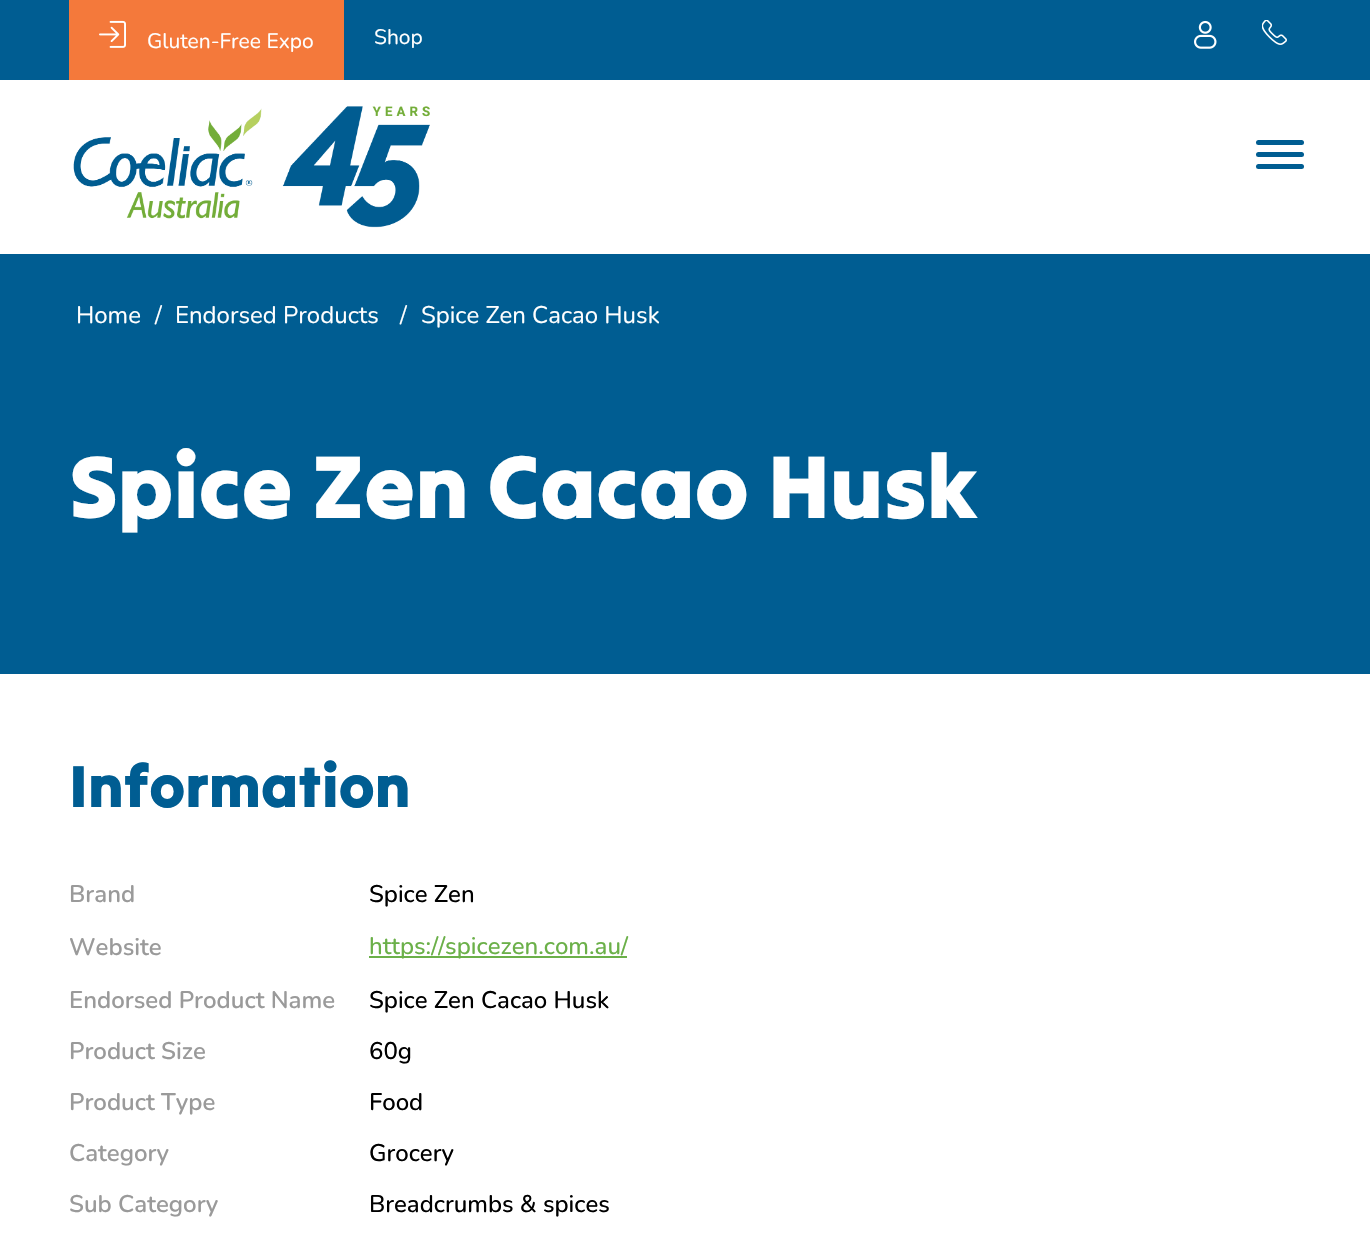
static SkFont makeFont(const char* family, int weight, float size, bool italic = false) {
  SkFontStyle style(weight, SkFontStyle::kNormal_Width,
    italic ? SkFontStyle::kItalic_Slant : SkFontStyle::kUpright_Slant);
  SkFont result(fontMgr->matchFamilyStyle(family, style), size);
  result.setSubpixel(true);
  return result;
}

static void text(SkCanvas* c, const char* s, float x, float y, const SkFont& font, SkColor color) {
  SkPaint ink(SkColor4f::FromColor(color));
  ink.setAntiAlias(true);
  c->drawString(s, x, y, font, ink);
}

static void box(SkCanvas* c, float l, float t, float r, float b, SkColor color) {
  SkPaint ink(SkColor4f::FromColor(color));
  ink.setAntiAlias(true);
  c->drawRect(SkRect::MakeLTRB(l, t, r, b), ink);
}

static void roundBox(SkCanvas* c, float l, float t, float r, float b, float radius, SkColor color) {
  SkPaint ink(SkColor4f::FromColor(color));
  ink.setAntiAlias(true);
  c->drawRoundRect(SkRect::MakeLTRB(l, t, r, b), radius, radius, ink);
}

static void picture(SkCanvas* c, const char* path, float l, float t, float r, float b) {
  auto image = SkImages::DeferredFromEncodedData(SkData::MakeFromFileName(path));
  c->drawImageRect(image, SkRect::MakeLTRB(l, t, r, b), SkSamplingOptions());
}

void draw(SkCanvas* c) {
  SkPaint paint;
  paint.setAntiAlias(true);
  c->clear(0xffffffff);
  box(c, 0, 0, 1370, 80, 0xff005d92);
  box(c, 69, 0, 344, 80, 0xfff4793b);
  picture(c, "img_01.png", 99, 20, 126, 48);
  SkFont face1 = makeFont("Nunito", 400, 21);
  text(c, "Gluten-Free Expo", 147, 48, face1, 0xffffffff);
  text(c, "Shop", 374, 44, face1, 0xffffffff);
  picture(c, "img_02.png", 1194, 20, 1217, 49);
  picture(c, "img_03.png", 1262, 20, 1287, 45);
  picture(c, "img_04.png", 73, 106, 430, 228);
  roundBox(c, 1256, 140, 1304, 145, 2.5f, 0xff005d92);
  roundBox(c, 1256, 152, 1304, 157, 2.5f, 0xff005d92);
  roundBox(c, 1256, 164, 1304, 169, 2.5f, 0xff005d92);
  box(c, 0, 254, 1370, 674, 0xff005d92);
  SkFont face2 = makeFont("Nunito", 400, 24);
  text(c, "Home", 76, 323, face2, 0xffffffff);
  text(c, "/", 155, 323, face2, 0xffffffff);
  text(c, "Endorsed Products", 175, 323, face2, 0xffffffff);
  text(c, "/", 400, 323, face2, 0xffffffff);
  text(c, "Spice Zen Cacao Husk", 421, 323, face2, 0xffffffff);
  SkFont face3 = makeFont("Tilt Warp", 400, 90);
  text(c, "Spice Zen Cacao Husk", 69, 518, face3, 0xffffffff);
  SkFont face4 = makeFont("Tilt Warp", 400, 60);
  text(c, "Information", 69, 807, face4, 0xff005d92);
  SkFont face5 = makeFont("Nunito", 600, 24);
  text(c, "Brand", 69, 902, face5, 0xff9a9a9a);
  SkFont face6 = makeFont("Nunito", 500, 24);
  text(c, "Spice Zen", 369, 902, face6, 0xff000000);
  text(c, "Website", 69, 955, face5, 0xff9a9a9a);
  box(c, 369, 956, 627, 958, 0xff6bb049);
  text(c, "https://spicezen.com.au/", 369, 954, face6, 0xff6bb049);
  text(c, "Endorsed Product Name", 69, 1008, face5, 0xff9a9a9a);
  text(c, "Spice Zen Cacao Husk", 369, 1008, face6, 0xff000000);
  text(c, "Product Size", 69, 1059, face5, 0xff9a9a9a);
  text(c, "60g", 369, 1059, face6, 0xff000000);
  text(c, "Product Type", 69, 1110, face5, 0xff9a9a9a);
  text(c, "Food", 369, 1110, face6, 0xff000000);
  text(c, "Category", 69, 1161, face5, 0xff9a9a9a);
  text(c, "Grocery", 369, 1161, face6, 0xff000000);
  text(c, "Sub Category", 69, 1212, face5, 0xff9a9a9a);
  text(c, "Breadcrumbs & spices", 369, 1212, face6, 0xff000000);
}
